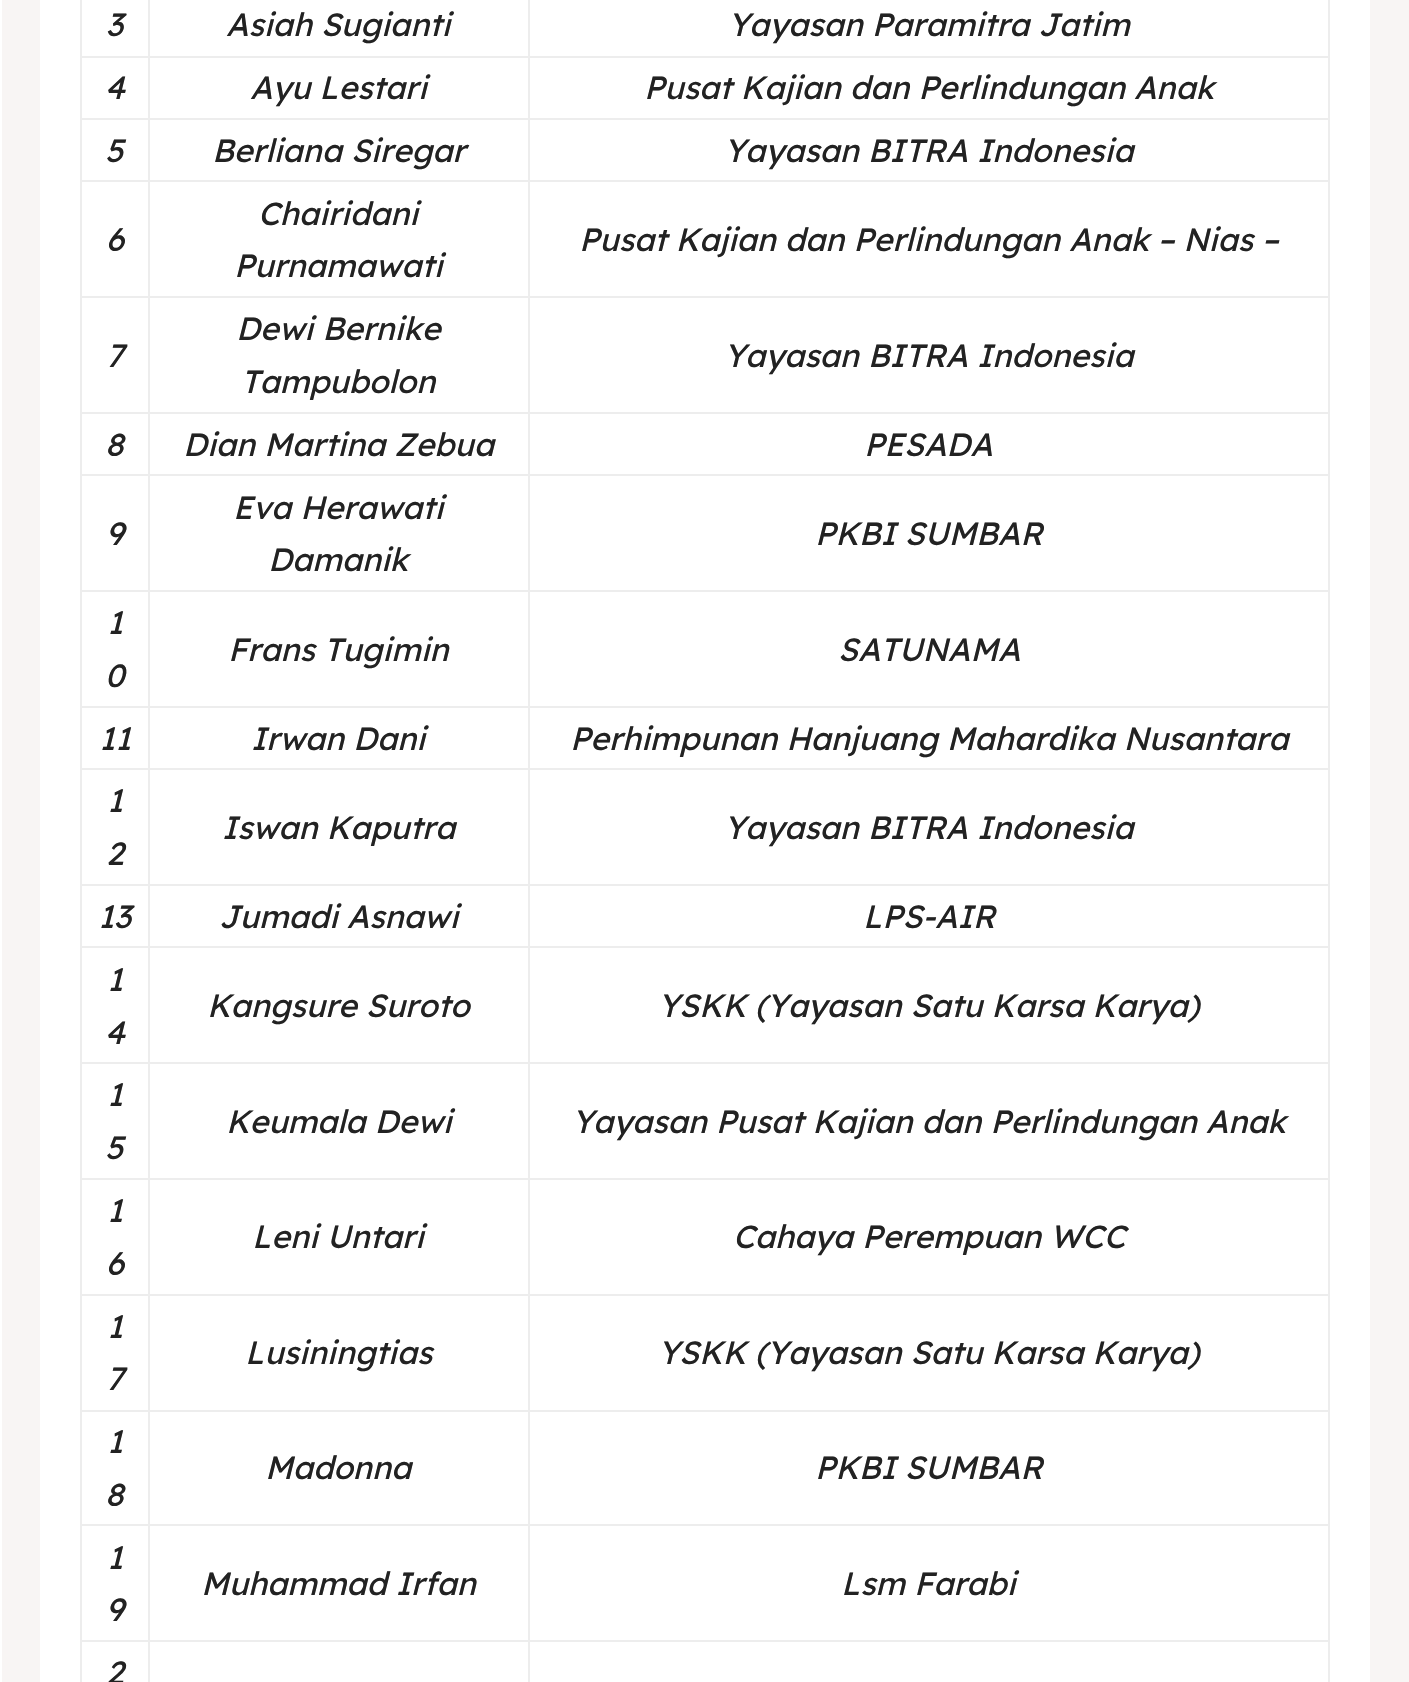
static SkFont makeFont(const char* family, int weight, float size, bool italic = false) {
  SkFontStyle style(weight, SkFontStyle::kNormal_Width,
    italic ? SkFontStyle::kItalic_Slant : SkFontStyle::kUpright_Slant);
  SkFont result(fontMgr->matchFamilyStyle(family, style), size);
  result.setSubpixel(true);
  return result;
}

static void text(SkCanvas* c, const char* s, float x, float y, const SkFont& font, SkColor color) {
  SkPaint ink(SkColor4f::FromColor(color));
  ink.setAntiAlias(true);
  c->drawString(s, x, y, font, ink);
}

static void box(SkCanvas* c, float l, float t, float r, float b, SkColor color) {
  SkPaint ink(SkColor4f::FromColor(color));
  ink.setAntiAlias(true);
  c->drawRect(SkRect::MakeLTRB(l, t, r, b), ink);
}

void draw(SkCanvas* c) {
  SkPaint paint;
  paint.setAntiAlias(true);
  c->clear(0xffffffff);
  box(c, 2, 0, 1409, 1682, 0xfff8f5f4);
  box(c, 40, 0, 1370, 1682, 0xffffffff);
  SkFont face1 = makeFont("Lexend", 400, 32, true);
  text(c, "3", 106, 36, face1, 0xff222222);
  box(c, 528, 56, 1330, 58, 0xffededed);
  box(c, 528, 118, 1330, 120, 0xffededed);
  box(c, 528, 180, 1330, 182, 0xffededed);
  box(c, 528, 296, 1330, 298, 0xffededed);
  box(c, 528, 412, 1330, 414, 0xffededed);
  box(c, 528, 474, 1330, 476, 0xffededed);
  box(c, 528, 590, 1330, 592, 0xffededed);
  box(c, 528, 706, 1330, 708, 0xffededed);
  box(c, 528, 768, 1330, 770, 0xffededed);
  box(c, 528, 884, 1330, 886, 0xffededed);
  box(c, 528, 946, 1330, 948, 0xffededed);
  box(c, 528, 1062, 1330, 1064, 0xffededed);
  box(c, 528, 1178, 1330, 1180, 0xffededed);
  box(c, 528, 1294, 1330, 1296, 0xffededed);
  box(c, 528, 1410, 1330, 1412, 0xffededed);
  box(c, 528, 1524, 1330, 1526, 0xffededed);
  box(c, 528, 1640, 1330, 1642, 0xffededed);
  box(c, 528, 1640, 530, 1682, 0xffededed);
  box(c, 148, 1640, 530, 1642, 0xffededed);
  box(c, 528, 1524, 530, 1642, 0xffededed);
  box(c, 148, 1524, 530, 1526, 0xffededed);
  box(c, 528, 1410, 530, 1526, 0xffededed);
  box(c, 148, 1410, 530, 1412, 0xffededed);
  box(c, 528, 1294, 530, 1412, 0xffededed);
  box(c, 148, 1294, 530, 1296, 0xffededed);
  box(c, 528, 1178, 530, 1296, 0xffededed);
  box(c, 148, 1178, 530, 1180, 0xffededed);
  box(c, 528, 1062, 530, 1180, 0xffededed);
  box(c, 148, 1062, 530, 1064, 0xffededed);
  box(c, 528, 946, 530, 1064, 0xffededed);
  box(c, 148, 946, 530, 948, 0xffededed);
  box(c, 528, 884, 530, 948, 0xffededed);
  box(c, 148, 884, 530, 886, 0xffededed);
  box(c, 528, 768, 530, 886, 0xffededed);
  box(c, 148, 768, 530, 770, 0xffededed);
  box(c, 528, 706, 530, 770, 0xffededed);
  box(c, 148, 706, 530, 708, 0xffededed);
  box(c, 528, 590, 530, 708, 0xffededed);
  box(c, 148, 590, 530, 592, 0xffededed);
  box(c, 528, 474, 530, 592, 0xffededed);
  box(c, 148, 474, 530, 476, 0xffededed);
  box(c, 528, 412, 530, 476, 0xffededed);
  box(c, 148, 412, 530, 414, 0xffededed);
  box(c, 528, 296, 530, 414, 0xffededed);
  box(c, 148, 296, 530, 298, 0xffededed);
  box(c, 528, 180, 530, 298, 0xffededed);
  box(c, 148, 180, 530, 182, 0xffededed);
  box(c, 528, 118, 530, 182, 0xffededed);
  box(c, 148, 118, 530, 120, 0xffededed);
  box(c, 528, 56, 530, 120, 0xffededed);
  box(c, 148, 56, 530, 58, 0xffededed);
  box(c, 148, 1640, 150, 1682, 0xffededed);
  box(c, 80, 1640, 150, 1642, 0xffededed);
  box(c, 148, 1524, 150, 1642, 0xffededed);
  box(c, 80, 1524, 150, 1526, 0xffededed);
  box(c, 148, 1410, 150, 1526, 0xffededed);
  box(c, 80, 1410, 150, 1412, 0xffededed);
  box(c, 148, 1294, 150, 1412, 0xffededed);
  box(c, 80, 1294, 150, 1296, 0xffededed);
  box(c, 148, 1178, 150, 1296, 0xffededed);
  box(c, 80, 1178, 150, 1180, 0xffededed);
  box(c, 148, 1062, 150, 1180, 0xffededed);
  box(c, 80, 1062, 150, 1064, 0xffededed);
  box(c, 148, 946, 150, 1064, 0xffededed);
  box(c, 80, 946, 150, 948, 0xffededed);
  box(c, 148, 884, 150, 948, 0xffededed);
  box(c, 80, 884, 150, 886, 0xffededed);
  box(c, 148, 768, 150, 886, 0xffededed);
  box(c, 80, 768, 150, 770, 0xffededed);
  box(c, 148, 706, 150, 770, 0xffededed);
  box(c, 80, 706, 150, 708, 0xffededed);
  box(c, 148, 590, 150, 708, 0xffededed);
  box(c, 80, 590, 150, 592, 0xffededed);
  box(c, 148, 474, 150, 592, 0xffededed);
  box(c, 80, 474, 150, 476, 0xffededed);
  box(c, 148, 412, 150, 476, 0xffededed);
  box(c, 80, 412, 150, 414, 0xffededed);
  box(c, 148, 296, 150, 414, 0xffededed);
  box(c, 80, 296, 150, 298, 0xffededed);
  box(c, 148, 180, 150, 298, 0xffededed);
  box(c, 80, 180, 150, 182, 0xffededed);
  box(c, 148, 118, 150, 182, 0xffededed);
  box(c, 80, 118, 150, 120, 0xffededed);
  box(c, 148, 56, 150, 120, 0xffededed);
  box(c, 80, 56, 150, 58, 0xffededed);
  box(c, 148, 0, 150, 58, 0xffededed);
  text(c, "Asiah Sugianti", 226, 36, face1, 0xff222222);
  box(c, 528, 0, 530, 58, 0xffededed);
  text(c, "Yayasan Paramitra Jatim", 728, 36, face1, 0xff222222);
  box(c, 80, 1640, 82, 1682, 0xffededed);
  box(c, 80, 1524, 82, 1642, 0xffededed);
  box(c, 80, 1410, 82, 1526, 0xffededed);
  box(c, 80, 1294, 82, 1412, 0xffededed);
  box(c, 80, 1178, 82, 1296, 0xffededed);
  box(c, 80, 1062, 82, 1180, 0xffededed);
  box(c, 80, 946, 82, 1064, 0xffededed);
  box(c, 80, 884, 82, 948, 0xffededed);
  box(c, 80, 768, 82, 886, 0xffededed);
  box(c, 80, 706, 82, 770, 0xffededed);
  box(c, 80, 590, 82, 708, 0xffededed);
  box(c, 80, 474, 82, 592, 0xffededed);
  box(c, 80, 412, 82, 476, 0xffededed);
  box(c, 80, 296, 82, 414, 0xffededed);
  box(c, 80, 180, 82, 298, 0xffededed);
  box(c, 80, 118, 82, 182, 0xffededed);
  box(c, 80, 0, 82, 120, 0xffededed);
  text(c, "4", 105, 99, face1, 0xff222222);
  text(c, "Ayu Lestari", 250, 99, face1, 0xff222222);
  box(c, 1328, 1640, 1330, 1682, 0xffededed);
  box(c, 1328, 1524, 1330, 1642, 0xffededed);
  box(c, 1328, 1410, 1330, 1526, 0xffededed);
  box(c, 1328, 1294, 1330, 1412, 0xffededed);
  box(c, 1328, 1178, 1330, 1296, 0xffededed);
  box(c, 1328, 1062, 1330, 1180, 0xffededed);
  box(c, 1328, 946, 1330, 1064, 0xffededed);
  box(c, 1328, 884, 1330, 948, 0xffededed);
  box(c, 1328, 768, 1330, 886, 0xffededed);
  box(c, 1328, 706, 1330, 770, 0xffededed);
  box(c, 1328, 590, 1330, 708, 0xffededed);
  box(c, 1328, 474, 1330, 592, 0xffededed);
  box(c, 1328, 412, 1330, 476, 0xffededed);
  box(c, 1328, 296, 1330, 414, 0xffededed);
  box(c, 1328, 180, 1330, 298, 0xffededed);
  box(c, 1328, 118, 1330, 182, 0xffededed);
  box(c, 1328, 0, 1330, 120, 0xffededed);
  text(c, "Pusat Kajian dan Perlindungan Anak", 644, 99, face1, 0xff222222);
  text(c, "5", 105, 162, face1, 0xff222222);
  text(c, "Berliana Siregar", 212, 162, face1, 0xff222222);
  text(c, "Yayasan BITRA Indonesia", 724, 162, face1, 0xff222222);
  text(c, "6", 106, 251, face1, 0xff222222);
  text(c, "Chairidani", 258, 225, face1, 0xff222222);
  text(c, "Purnamawati", 234, 277, face1, 0xff222222);
  text(c, "Pusat Kajian dan Perlindungan Anak – Nias –", 579, 251, face1, 0xff222222);
  text(c, "7", 106, 367, face1, 0xff222222);
  text(c, "Dewi Bernike", 236, 340, face1, 0xff222222);
  text(c, "Tampubolon", 241, 393, face1, 0xff222222);
  text(c, "Yayasan BITRA Indonesia", 724, 367, face1, 0xff222222);
  text(c, "8", 105, 456, face1, 0xff222222);
  text(c, "Dian Martina Zebua", 183, 456, face1, 0xff222222);
  text(c, "PESADA", 864, 456, face1, 0xff222222);
  text(c, "9", 106, 545, face1, 0xff222222);
  text(c, "Eva Herawati", 233, 519, face1, 0xff222222);
  text(c, "Damanik", 268, 571, face1, 0xff222222);
  text(c, "PKBI SUMBAR", 815, 545, face1, 0xff222222);
  text(c, "1", 107, 634, face1, 0xff222222);
  text(c, "0", 105, 687, face1, 0xff222222);
  text(c, "Frans Tugimin", 228, 661, face1, 0xff222222);
  text(c, "SATUNAMA", 838, 661, face1, 0xff222222);
  text(c, "11", 99, 750, face1, 0xff222222);
  text(c, "Irwan Dani", 251, 750, face1, 0xff222222);
  text(c, "Perhimpunan Hanjuang Mahardika Nusantara", 570, 750, face1, 0xff222222);
  text(c, "1", 107, 812, face1, 0xff222222);
  text(c, "2", 106, 865, face1, 0xff222222);
  text(c, "Iswan Kaputra", 222, 839, face1, 0xff222222);
  text(c, "Yayasan BITRA Indonesia", 724, 839, face1, 0xff222222);
  text(c, "13", 98, 928, face1, 0xff222222);
  text(c, "Jumadi Asnawi", 219, 928, face1, 0xff222222);
  text(c, "LPS-AIR", 863, 928, face1, 0xff222222);
  text(c, "1", 107, 991, face1, 0xff222222);
  text(c, "4", 105, 1044, face1, 0xff222222);
  text(c, "Kangsure Suroto", 207, 1017, face1, 0xff222222);
  text(c, "YSKK (Yayasan Satu Karsa Karya)", 658, 1017, face1, 0xff222222);
  text(c, "1", 107, 1106, face1, 0xff222222);
  text(c, "5", 105, 1159, face1, 0xff222222);
  text(c, "Keumala Dewi", 226, 1133, face1, 0xff222222);
  text(c, "Yayasan Pusat Kajian dan Perlindungan Anak", 572, 1133, face1, 0xff222222);
  text(c, "1", 107, 1222, face1, 0xff222222);
  text(c, "6", 106, 1275, face1, 0xff222222);
  text(c, "Leni Untari", 252, 1248, face1, 0xff222222);
  text(c, "Cahaya Perempuan WCC", 733, 1248, face1, 0xff222222);
  text(c, "1", 107, 1338, face1, 0xff222222);
  text(c, "7", 106, 1390, face1, 0xff222222);
  text(c, "Lusiningtias", 245, 1364, face1, 0xff222222);
  text(c, "YSKK (Yayasan Satu Karsa Karya)", 658, 1364, face1, 0xff222222);
  text(c, "1", 107, 1453, face1, 0xff222222);
  text(c, "8", 105, 1506, face1, 0xff222222);
  text(c, "Madonna", 265, 1479, face1, 0xff222222);
  text(c, "PKBI SUMBAR", 815, 1479, face1, 0xff222222);
  text(c, "1", 107, 1569, face1, 0xff222222);
  text(c, "9", 106, 1621, face1, 0xff222222);
  text(c, "Muhammad Irfan", 201, 1595, face1, 0xff222222);
  text(c, "Lsm Farabi", 841, 1595, face1, 0xff222222);
  text(c, "2", 106, 1684, face1, 0xff222222);
}
